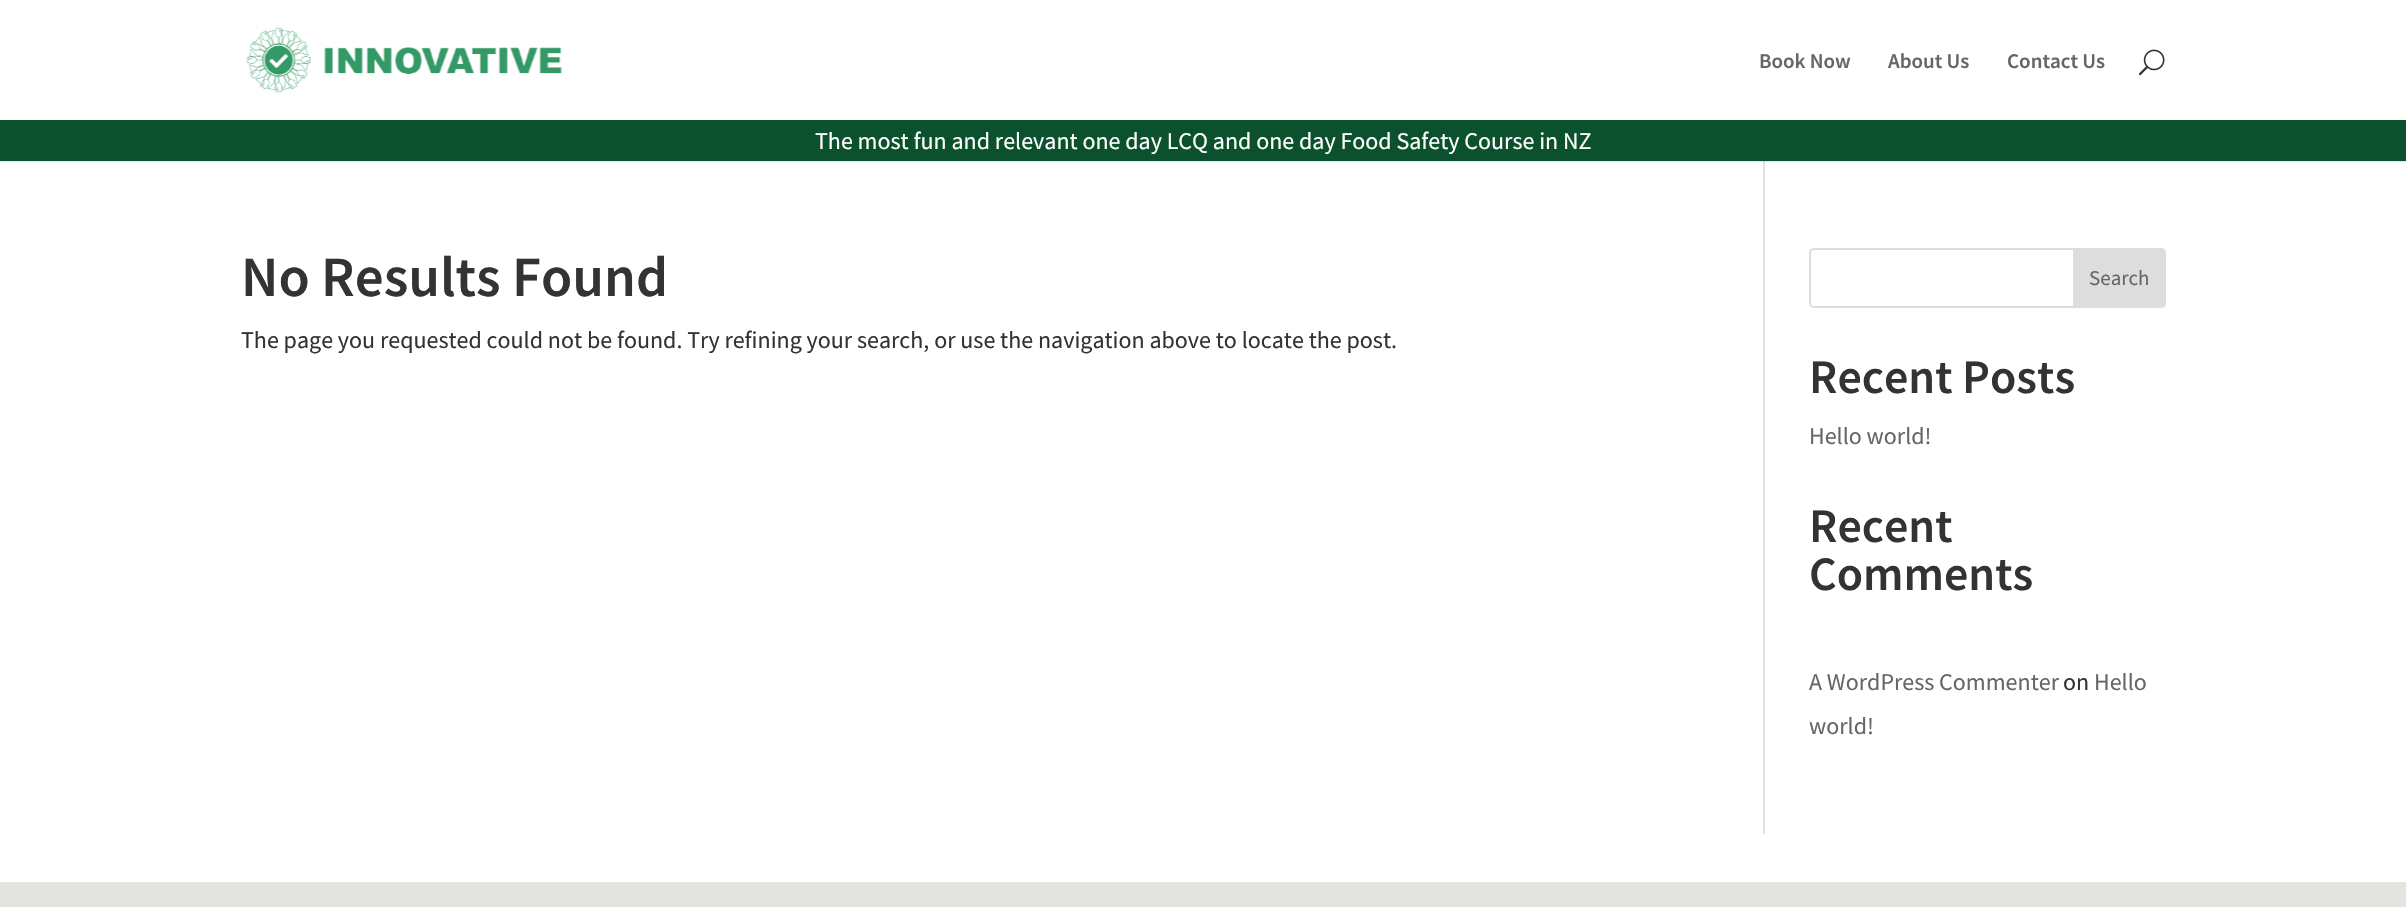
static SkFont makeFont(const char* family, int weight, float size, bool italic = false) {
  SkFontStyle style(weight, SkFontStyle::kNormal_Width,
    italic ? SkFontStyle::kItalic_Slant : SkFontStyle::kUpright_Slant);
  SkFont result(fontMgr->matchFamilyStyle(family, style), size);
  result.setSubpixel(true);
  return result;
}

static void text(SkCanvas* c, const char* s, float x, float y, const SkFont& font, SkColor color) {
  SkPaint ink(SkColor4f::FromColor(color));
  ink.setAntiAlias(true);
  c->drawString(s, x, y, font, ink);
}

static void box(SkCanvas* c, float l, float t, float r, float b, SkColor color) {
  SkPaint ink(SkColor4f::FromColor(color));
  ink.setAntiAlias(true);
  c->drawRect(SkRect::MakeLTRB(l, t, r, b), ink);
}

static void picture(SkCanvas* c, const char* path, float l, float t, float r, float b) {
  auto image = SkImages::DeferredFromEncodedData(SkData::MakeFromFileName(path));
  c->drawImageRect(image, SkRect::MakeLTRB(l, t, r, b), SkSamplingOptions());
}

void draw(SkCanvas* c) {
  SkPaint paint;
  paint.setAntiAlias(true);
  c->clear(0xffffffff);
  box(c, 0, 161, 2406, 162, 0xffe6e6e6);
  picture(c, "img_01.png", 246, 27, 562, 93);
  SkFont face1 = makeFont("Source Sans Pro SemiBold", 600, 21);
  text(c, "Book Now", 1759, 68, face1, 0xff666666);
  text(c, "About Us", 1888, 68, face1, 0xff666666);
  text(c, "Contact Us", 2007, 68, face1, 0xff666666);
  picture(c, "img_02.png", 2138, 49, 2165, 76);
  box(c, 0, 120, 2406, 161, 0xff0c512e);
  SkFont face2 = makeFont("Source Sans Pro", 400, 24);
  text(c, "The most fun and relevant one day LCQ and one day Food Safety Course in NZ", 815, 149, face2, 0xffffffff);
  box(c, 1763, 161, 1765, 834, 0xffe2e2e2);
  box(c, 1763, 161, 1765, 162, 0xffcbcbcb);
  SkFont face3 = makeFont("Source Sans Pro SemiBold", 600, 57);
  text(c, "No Results Found", 241, 296, face3, 0xff333333);
  text(c, "The page you requested could not be found. Try refining your search, or use the navigation above to locate the post.", 241, 348, face2, 0xff333333);
  paint.setStyle(SkPaint::kStroke_Style);
  paint.setStrokeWidth(2);
  paint.setColor(0xffdddddd);
  c->drawRoundRect(SkRect::MakeLTRB(1810, 249, 2165, 307), 4, 4, paint);
  paint.setStyle(SkPaint::kFill_Style);
  c->drawPath(SkPathBuilder().moveTo(2074, 249).lineTo(2161, 249).cubicTo(2163, 249, 2165, 251, 2165, 253).lineTo(2165, 303).cubicTo(2165, 305, 2163, 307, 2161, 307).lineTo(2074, 307).close().detach(), paint);
  paint.setStyle(SkPaint::kStroke_Style);
  c->drawPath(SkPathBuilder().moveTo(2074, 249).lineTo(2161, 249).cubicTo(2163, 249, 2165, 251, 2165, 253).lineTo(2165, 303).cubicTo(2165, 305, 2163, 307, 2161, 307).lineTo(2074, 307).close().detach(), paint);
  SkFont face4 = makeFont("Source Sans Pro", 400, 21);
  text(c, "Search", 2089, 285, face4, 0xff666666);
  SkFont face5 = makeFont("Source Sans Pro SemiBold", 600, 48);
  text(c, "Recent Posts", 1809, 393, face5, 0xff333333);
  text(c, "Hello world!", 1809, 444, face2, 0xff666666);
  text(c, "Recent", 1809, 542, face5, 0xff333333);
  text(c, "Comments", 1809, 590, face5, 0xff333333);
  text(c, "A WordPress Commenter", 1809, 690, face2, 0xff666666);
  text(c, "on", 2063, 690, face2, 0xff333333);
  text(c, "Hello", 2094, 690, face2, 0xff666666);
  text(c, "world!", 1809, 734, face2, 0xff666666);
  box(c, 0, 882, 2406, 907, 0xffe4e3de);
}
